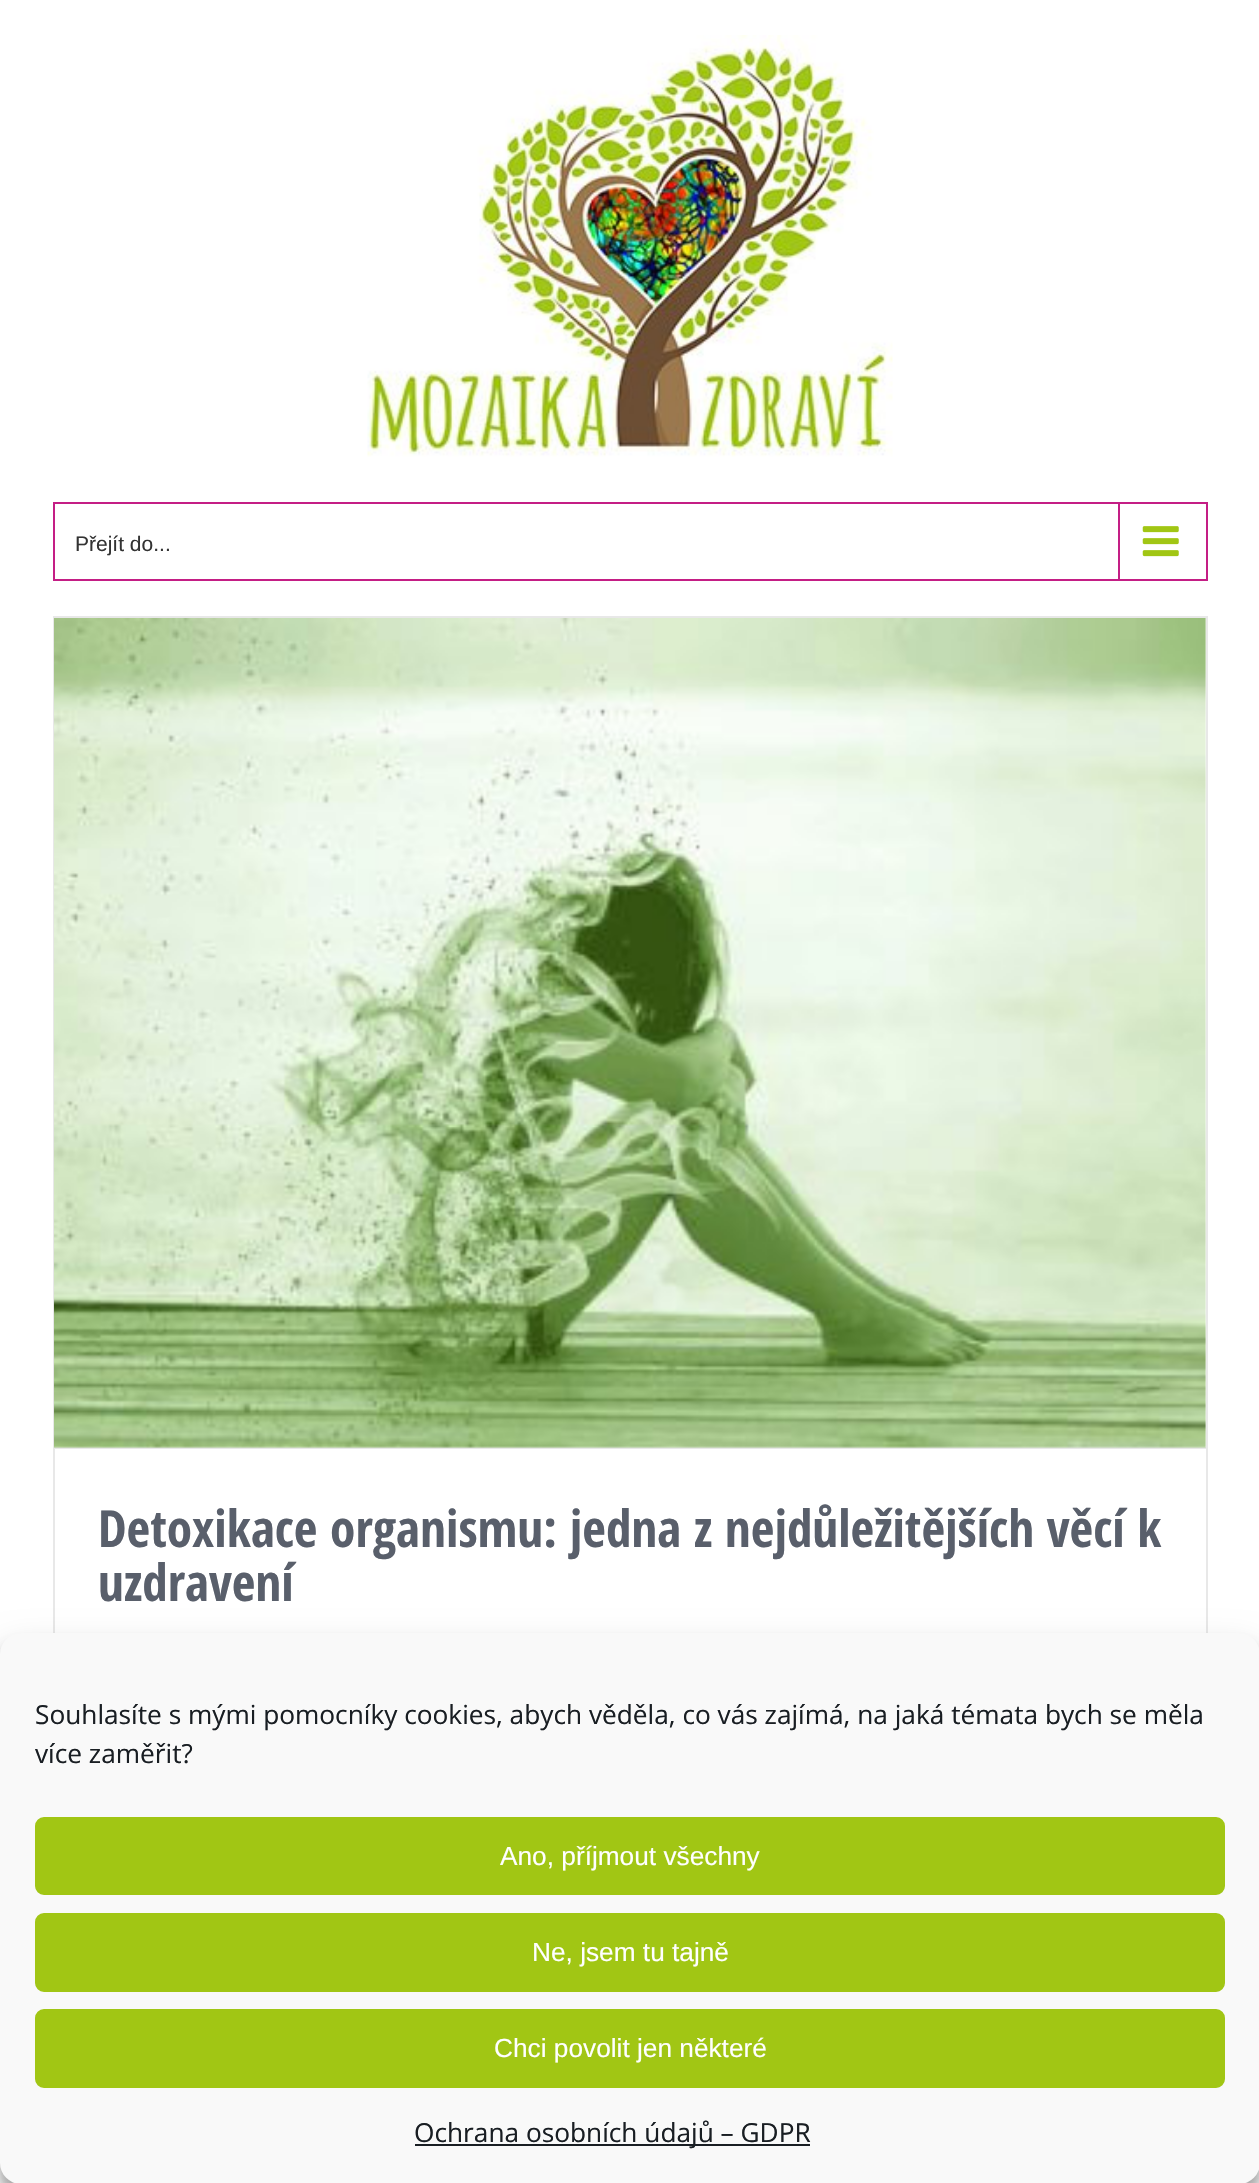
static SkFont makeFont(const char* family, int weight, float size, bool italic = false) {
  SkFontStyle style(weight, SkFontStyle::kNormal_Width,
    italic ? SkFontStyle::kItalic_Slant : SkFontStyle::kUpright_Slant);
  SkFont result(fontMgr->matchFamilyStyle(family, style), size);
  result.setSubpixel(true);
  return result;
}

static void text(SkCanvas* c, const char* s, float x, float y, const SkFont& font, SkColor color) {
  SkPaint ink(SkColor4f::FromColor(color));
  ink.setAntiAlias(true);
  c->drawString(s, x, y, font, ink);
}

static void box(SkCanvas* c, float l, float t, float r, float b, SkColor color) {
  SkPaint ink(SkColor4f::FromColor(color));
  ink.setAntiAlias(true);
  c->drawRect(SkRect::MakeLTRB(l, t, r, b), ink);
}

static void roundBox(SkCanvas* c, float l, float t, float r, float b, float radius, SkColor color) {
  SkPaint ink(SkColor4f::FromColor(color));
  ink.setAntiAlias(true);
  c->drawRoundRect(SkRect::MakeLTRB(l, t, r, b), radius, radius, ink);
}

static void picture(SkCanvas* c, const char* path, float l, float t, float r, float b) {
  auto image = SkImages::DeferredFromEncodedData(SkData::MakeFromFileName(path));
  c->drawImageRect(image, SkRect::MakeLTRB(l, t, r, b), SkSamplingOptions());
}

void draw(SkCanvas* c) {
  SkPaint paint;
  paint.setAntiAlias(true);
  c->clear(0xffffffff);
  picture(c, "img_01.png", 367, 35, 893, 457);
  paint.setStyle(SkPaint::kStroke_Style);
  paint.setStrokeWidth(2);
  paint.setColor(0xffc41e85);
  c->drawRect(SkRect::MakeLTRB(54, 503, 1207, 580), paint);
  SkFont face1 = makeFont("Liberation Sans", 400, 21);
  text(c, "Přejít do...", 75, 551, face1, 0xff333333);
  box(c, 1118, 504, 1120, 579, 0xffc41e85);
  picture(c, "img_02.png", 1142, 526, 1179, 557);
  box(c, 53, 616, 1208, 618, 0xffe8e8e8);
  box(c, 1206, 616, 1208, 1633, 0xffe8e8e8);
  box(c, 53, 616, 55, 1633, 0xffe8e8e8);
  box(c, 54, 1447, 1206, 1449, 0xffe8e8e8);
  picture(c, "img_03.png", 54, 618, 1206, 1448);
  SkFont face2 = makeFont("Open Sans Condensed", 700, 51.25f);
  text(c, "Detoxikace organismu: jedna z nejdůležitějších věcí k", 98, 1547, face2, 0xff595f6b);
  text(c, "uzdravení", 98, 1601, face2, 0xff595f6b);
  paint.setStyle(SkPaint::kFill_Style);
  paint.setColor(0x3b000000);
  paint.setMaskFilter(SkMaskFilter::MakeBlur(kNormal_SkBlurStyle, 5));
  c->drawRoundRect(SkRect::MakeLTRB(0, 1643, 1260, 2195), 21, 21, paint);
  paint.setMaskFilter(nullptr);
  paint.setColor(0x30000000);
  paint.setMaskFilter(SkMaskFilter::MakeBlur(kNormal_SkBlurStyle, 17.5f));
  c->drawRoundRect(SkRect::MakeLTRB(0, 1650, 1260, 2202), 21, 21, paint);
  paint.setMaskFilter(nullptr);
  roundBox(c, 0, 1633, 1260, 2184, 21, 0xfff9f9f9);
  SkFont face3 = makeFont("Open Sans", 400, 26.25f);
  text(c, "Souhlasíte s mými pomocníky cookies, abych věděla, co vás zajímá, na jaká témata bych se měla", 35, 1724, face3, 0xff191e23);
  text(c, "více zaměřit?", 35, 1763, face3, 0xff191e23);
  paint.setColor(0xffa1c614);
  c->drawRoundRect(SkRect::MakeLTRB(36, 1818, 1224, 1894), 8, 8, paint);
  paint.setStyle(SkPaint::kStroke_Style);
  c->drawRoundRect(SkRect::MakeLTRB(36, 1818, 1224, 1894), 8, 8, paint);
  SkFont face4 = makeFont("Liberation Sans", 400, 26.25f);
  text(c, "Ano, příjmout všechny", 500, 1865, face4, 0xffffffff);
  paint.setStyle(SkPaint::kFill_Style);
  c->drawRoundRect(SkRect::MakeLTRB(36, 1914, 1224, 1991), 8, 8, paint);
  paint.setStyle(SkPaint::kStroke_Style);
  c->drawRoundRect(SkRect::MakeLTRB(36, 1914, 1224, 1991), 8, 8, paint);
  text(c, "Ne, jsem tu tajně", 532, 1961, face4, 0xffffffff);
  paint.setStyle(SkPaint::kFill_Style);
  c->drawRoundRect(SkRect::MakeLTRB(36, 2010, 1224, 2087), 8, 8, paint);
  paint.setStyle(SkPaint::kStroke_Style);
  c->drawRoundRect(SkRect::MakeLTRB(36, 2010, 1224, 2087), 8, 8, paint);
  text(c, "Chci povolit jen některé", 494, 2057, face4, 0xffffffff);
  box(c, 415, 2144, 810, 2146, 0xff191e23);
  text(c, "Ochrana osobních údajů – GDPR", 414, 2142, face3, 0xff191e23);
}
